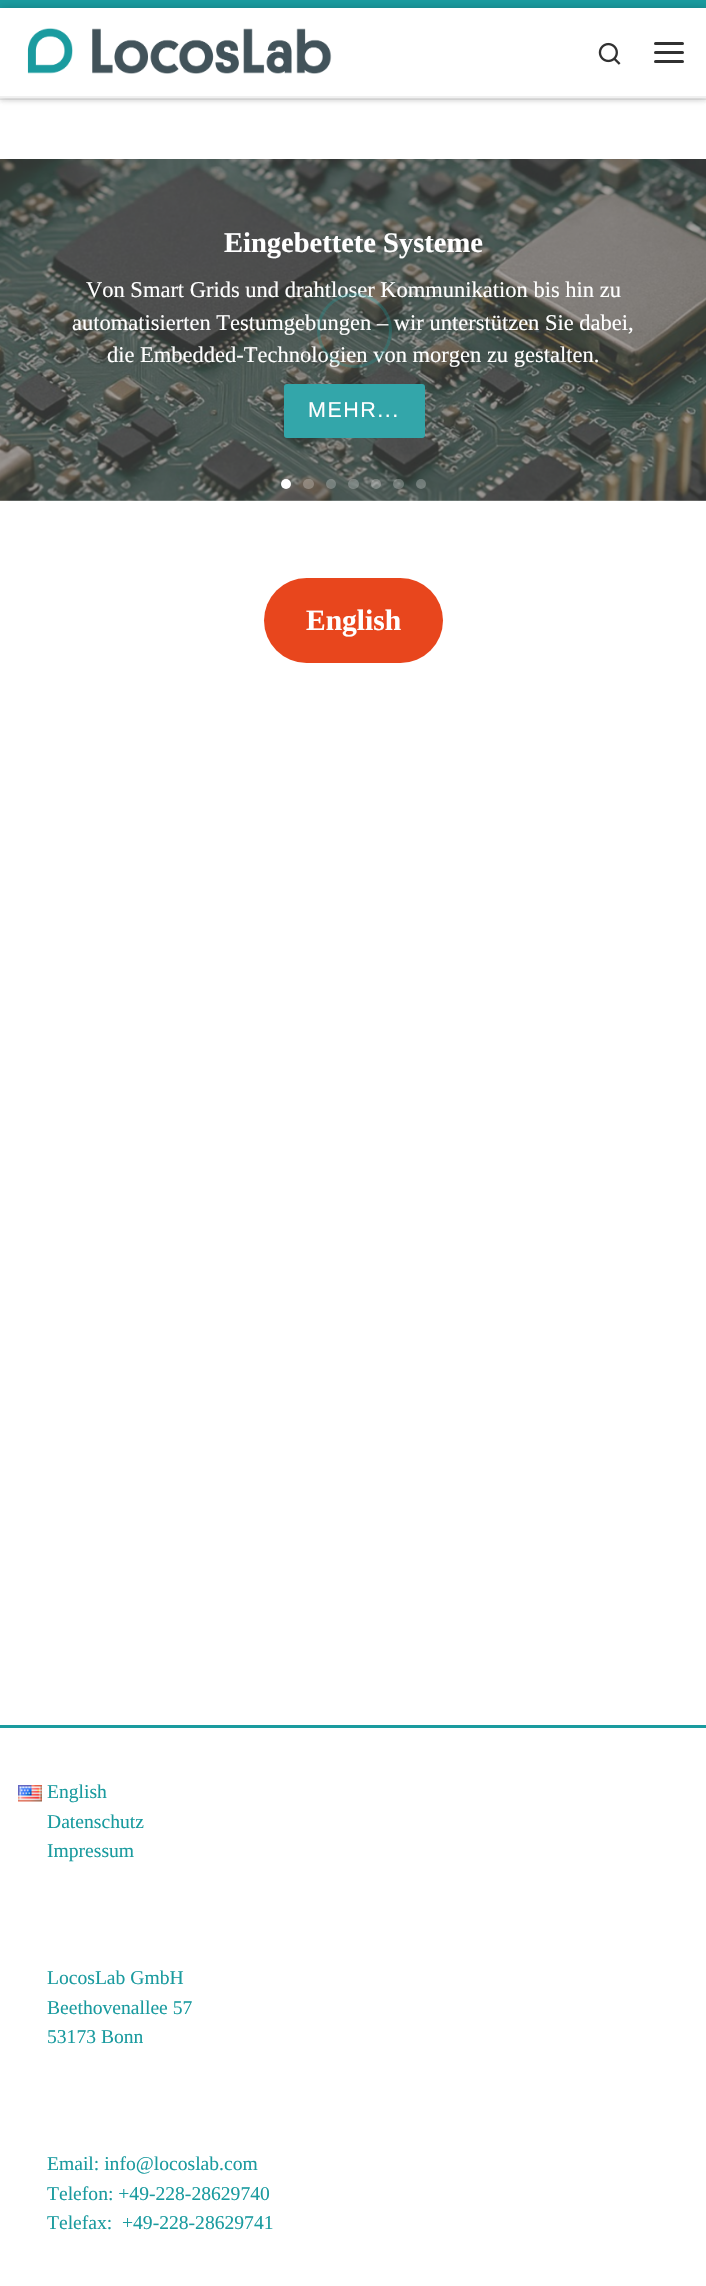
static SkFont makeFont(const char* family, int weight, float size, bool italic = false) {
  SkFontStyle style(weight, SkFontStyle::kNormal_Width,
    italic ? SkFontStyle::kItalic_Slant : SkFontStyle::kUpright_Slant);
  SkFont result(fontMgr->matchFamilyStyle(family, style), size);
  result.setSubpixel(true);
  return result;
}

static void text(SkCanvas* c, const char* s, float x, float y, const SkFont& font, SkColor color) {
  SkPaint ink(SkColor4f::FromColor(color));
  ink.setAntiAlias(true);
  c->drawString(s, x, y, font, ink);
}

static void spacedText(SkCanvas* c, const char* s, float x, float y, const SkFont& font, const SkPaint& ink, float letter, float word) {
  std::vector<SkGlyphID> glyphs(font.countText(s, strlen(s), SkTextEncoding::kUTF8));
  std::vector<float> xs(glyphs.size());
  font.textToGlyphs(s, strlen(s), SkTextEncoding::kUTF8, glyphs);
  font.getXPos(glyphs, xs, x);
  float extra = 0;
  for (size_t i = 0; i < glyphs.size(); i++) {
    xs[i] += extra;
    extra += letter + word * (glyphs[i] == font.unicharToGlyph(' '));
  }
  c->drawTextBlob(SkTextBlob::MakeFromPosHGlyphs(glyphs, xs, y, font), 0, 0, ink);
}

static void box(SkCanvas* c, float l, float t, float r, float b, SkColor color) {
  SkPaint ink(SkColor4f::FromColor(color));
  ink.setAntiAlias(true);
  c->drawRect(SkRect::MakeLTRB(l, t, r, b), ink);
}

static void roundBox(SkCanvas* c, float l, float t, float r, float b, float radius, SkColor color) {
  SkPaint ink(SkColor4f::FromColor(color));
  ink.setAntiAlias(true);
  c->drawRoundRect(SkRect::MakeLTRB(l, t, r, b), radius, radius, ink);
}

static void picture(SkCanvas* c, const char* path, float l, float t, float r, float b) {
  auto image = SkImages::DeferredFromEncodedData(SkData::MakeFromFileName(path));
  c->drawImageRect(image, SkRect::MakeLTRB(l, t, r, b), SkSamplingOptions());
}

void draw(SkCanvas* c) {
  SkPaint paint;
  paint.setAntiAlias(true);
  c->clear(0xffffffff);
  paint.setColor(0x14666666);
  paint.setMaskFilter(SkMaskFilter::MakeBlur(kNormal_SkBlurStyle, 1.5f));
  c->drawRect(SkRect::MakeLTRB(0, 3, 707, 102), paint);
  paint.setMaskFilter(nullptr);
  box(c, 0, 0, 706, 8, 0xff1a9b9f);
  box(c, 0, 99, 706, 100, 0x17313131);
  paint.setColor(0xffefefef);
  c->drawPath(SkPathBuilder().moveTo(0, 98).lineTo(0, 99).lineTo(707, 99).lineTo(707, 9).lineTo(706, 9).lineTo(706, 98).close().detach(), paint);
  paint.setColor(0x33000000);
  paint.setMaskFilter(SkMaskFilter::MakeBlur(kNormal_SkBlurStyle, 4));
  c->drawRect(SkRect::MakeLTRB(0, 8, 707, 98), paint);
  paint.setMaskFilter(nullptr);
  box(c, 0, 8, 706, 96, 0xffffffff);
  picture(c, "img_01.png", 27, 28, 332, 74);
  picture(c, "img_02.png", 598, 42, 621, 65);
  roundBox(c, 654, 42, 684, 45, 1.5f, 0xff313131);
  roundBox(c, 654, 51, 684, 54, 1.5f, 0xff313131);
  roundBox(c, 654, 60, 684, 63, 1.5f, 0xff313131);
  box(c, 0, 96, 706, 98, 0xfff0f0f0);
  picture(c, "img_03.png", 0, 159, 706, 501);
  SkFont face1 = makeFont("Liberation Serif", 700, 28.5f);
  text(c, "Eingebettete Systeme", 224, 252, face1, 0xffffffff);
  SkFont face2 = makeFont("Liberation Serif", 400, 22.5f);
  text(c, "Von Smart Grids und drahtloser Kommunikation bis hin zu", 86, 297, face2, 0xffffffff);
  text(c, "automatisierten Testumgebungen – wir unterstützen Sie dabei,", 72, 330, face2, 0xffffffff);
  text(c, "die Embedded-Technologien von morgen zu gestalten.", 107, 362, face2, 0xffffffff);
  paint.setColor(0xff33a6aa);
  c->drawRoundRect(SkRect::MakeLTRB(285.5f, 385.5f, 423.5f, 436.5f), 1.5f, 1.5f, paint);
  paint.setStyle(SkPaint::kStroke_Style);
  paint.setStrokeWidth(3);
  c->drawRoundRect(SkRect::MakeLTRB(285.5f, 385.5f, 423.5f, 436.5f), 1.5f, 1.5f, paint);
  SkFont face3 = makeFont("Liberation Sans", 400, 21.5f);
  paint.setStyle(SkPaint::kFill_Style);
  paint.setColor(0xffffffff);
  spacedText(c, "MEHR...", 308, 417, face3, paint, 1.5f, 0);
  c->drawCircle(286, 484, 5, paint);
  roundBox(c, 303, 479, 314, 489, 5, 0x40ffffff);
  paint.setColor(0x40ffffff);
  c->drawCircle(331, 484, 5, paint);
  roundBox(c, 348, 479, 359, 489, 5, 0x40ffffff);
  c->drawCircle(376, 484, 5, paint);
  roundBox(c, 393, 479, 404, 489, 5, 0x40ffffff);
  c->drawCircle(421, 484, 5, paint);
  paint.setStyle(SkPaint::kStroke_Style);
  paint.setColor(0x1c1a9b9f);
  c->drawCircle(354.5f, 330.5f, 36, paint);
  c->drawCircle(354.5f, 330.5f, 36, paint);
  c->drawCircle(354.5f, 330.5f, 36, paint);
  roundBox(c, 264, 578, 443, 663, 42.5f, 0xffe8461d);
  SkFont face4 = makeFont("Liberation Serif", 700, 29.5f);
  text(c, "English", 306, 630, face4, 0xffffffff);
  box(c, 0, 1725, 706, 1728, 0xff1a9b9f);
  picture(c, "img_04.png", 18, 1785, 42, 1802);
  SkFont face5 = makeFont("Liberation Serif", 400, 19.6f);
  text(c, "English", 47, 1798, face5, 0xff1a9b9f);
  text(c, "Datenschutz", 47, 1828, face5, 0xff1a9b9f);
  text(c, "Impressum", 47, 1857, face5, 0xff1a9b9f);
  text(c, "LocosLab GmbH", 47, 1984, face5, 0xff1a9b9f);
  text(c, "Beethovenallee 57", 47, 2014, face5, 0xff1a9b9f);
  text(c, "53173 Bonn", 47, 2043, face5, 0xff1a9b9f);
  text(c, "Email: info@locoslab.com", 47, 2170, face5, 0xff1a9b9f);
  text(c, "Telefon: +49-228-28629740", 47, 2200, face5, 0xff1a9b9f);
  text(c, "Telefax:", 47, 2229, face5, 0xff1a9b9f);
  text(c, "+49-228-28629741", 122, 2229, face5, 0xff1a9b9f);
}
